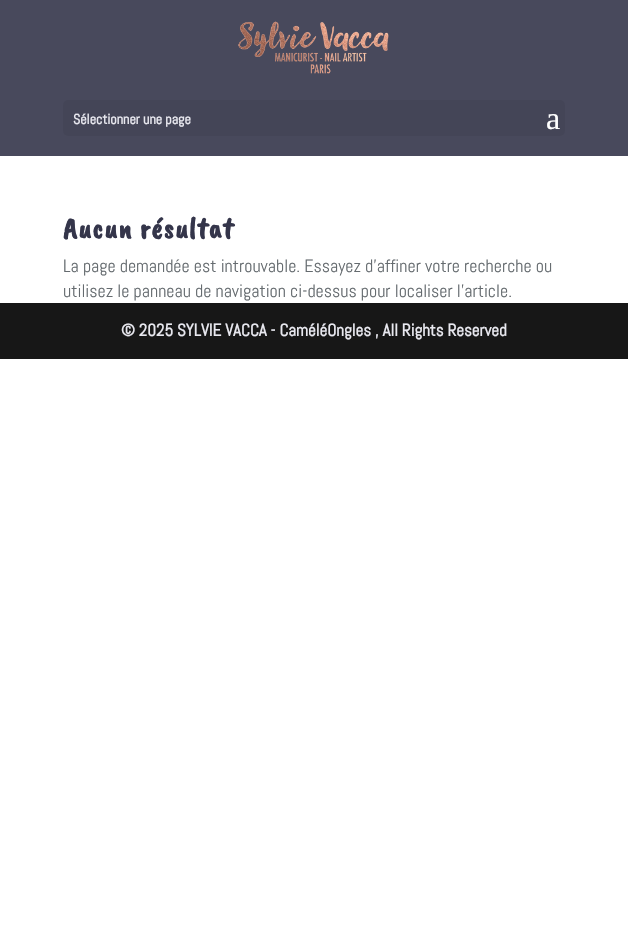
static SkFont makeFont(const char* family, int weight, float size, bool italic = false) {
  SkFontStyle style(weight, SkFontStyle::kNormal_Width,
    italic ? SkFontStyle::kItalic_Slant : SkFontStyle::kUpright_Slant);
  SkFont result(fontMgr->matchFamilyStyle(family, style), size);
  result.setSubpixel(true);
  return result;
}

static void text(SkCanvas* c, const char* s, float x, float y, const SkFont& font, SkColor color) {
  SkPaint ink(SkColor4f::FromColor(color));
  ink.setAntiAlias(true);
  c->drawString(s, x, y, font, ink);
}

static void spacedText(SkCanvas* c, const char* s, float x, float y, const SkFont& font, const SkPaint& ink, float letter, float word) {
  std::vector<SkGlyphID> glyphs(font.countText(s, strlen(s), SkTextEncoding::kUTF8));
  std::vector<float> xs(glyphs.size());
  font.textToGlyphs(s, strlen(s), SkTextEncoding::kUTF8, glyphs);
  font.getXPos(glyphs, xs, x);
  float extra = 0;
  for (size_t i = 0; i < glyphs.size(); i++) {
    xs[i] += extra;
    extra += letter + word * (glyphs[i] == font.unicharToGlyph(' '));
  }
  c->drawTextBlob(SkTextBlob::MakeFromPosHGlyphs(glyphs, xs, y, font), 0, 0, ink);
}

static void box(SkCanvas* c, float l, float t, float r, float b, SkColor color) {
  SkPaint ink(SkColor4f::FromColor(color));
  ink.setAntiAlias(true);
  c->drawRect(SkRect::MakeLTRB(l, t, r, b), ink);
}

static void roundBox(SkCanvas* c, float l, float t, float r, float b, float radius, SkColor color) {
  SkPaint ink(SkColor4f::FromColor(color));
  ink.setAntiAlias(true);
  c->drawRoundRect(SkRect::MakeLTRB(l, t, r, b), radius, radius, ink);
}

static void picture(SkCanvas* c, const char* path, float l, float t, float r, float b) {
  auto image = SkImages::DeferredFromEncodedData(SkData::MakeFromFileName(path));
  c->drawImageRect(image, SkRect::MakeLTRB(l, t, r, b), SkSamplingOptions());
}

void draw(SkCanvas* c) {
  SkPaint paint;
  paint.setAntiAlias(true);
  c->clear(0xffffffff);
  box(c, 0, 0, 628, 156, 0xff48495c);
  picture(c, "img_01.png", 238, 21, 389, 74);
  roundBox(c, 63, 100, 565, 136, 5, 0xff444557);
  SkFont face1 = makeFont("Abel", 700, 14);
  text(c, "Sélectionner une page", 73, 124, face1, 0xffe8e8ef);
  SkFont face2 = makeFont("Liberation Serif", 400, 32);
  text(c, "a", 546, 129, face2, 0xffffffff);
  SkFont face3 = makeFont("Caveat Brush", 700, 30);
  paint.setColor(0xff34354a);
  spacedText(c, "Aucun résultat", 63, 238, face3, paint, 1, 0);
  SkFont face4 = makeFont("Abel", 400, 18);
  text(c, "La page demandée est introuvable. Essayez d'affiner votre recherche ou", 63, 272, face4, 0xff656b6f);
  text(c, "utilisez le panneau de navigation ci-dessus pour localiser l'article.", 63, 297, face4, 0xff656b6f);
  box(c, 0, 303, 628, 359, 0xff171717);
  SkFont face5 = makeFont("Abel", 700, 17);
  text(c, "© 2025 SYLVIE VACCA - CaméléOngles , All Rights Reserved", 121, 336, face5, 0xffe8e8ef);
}
